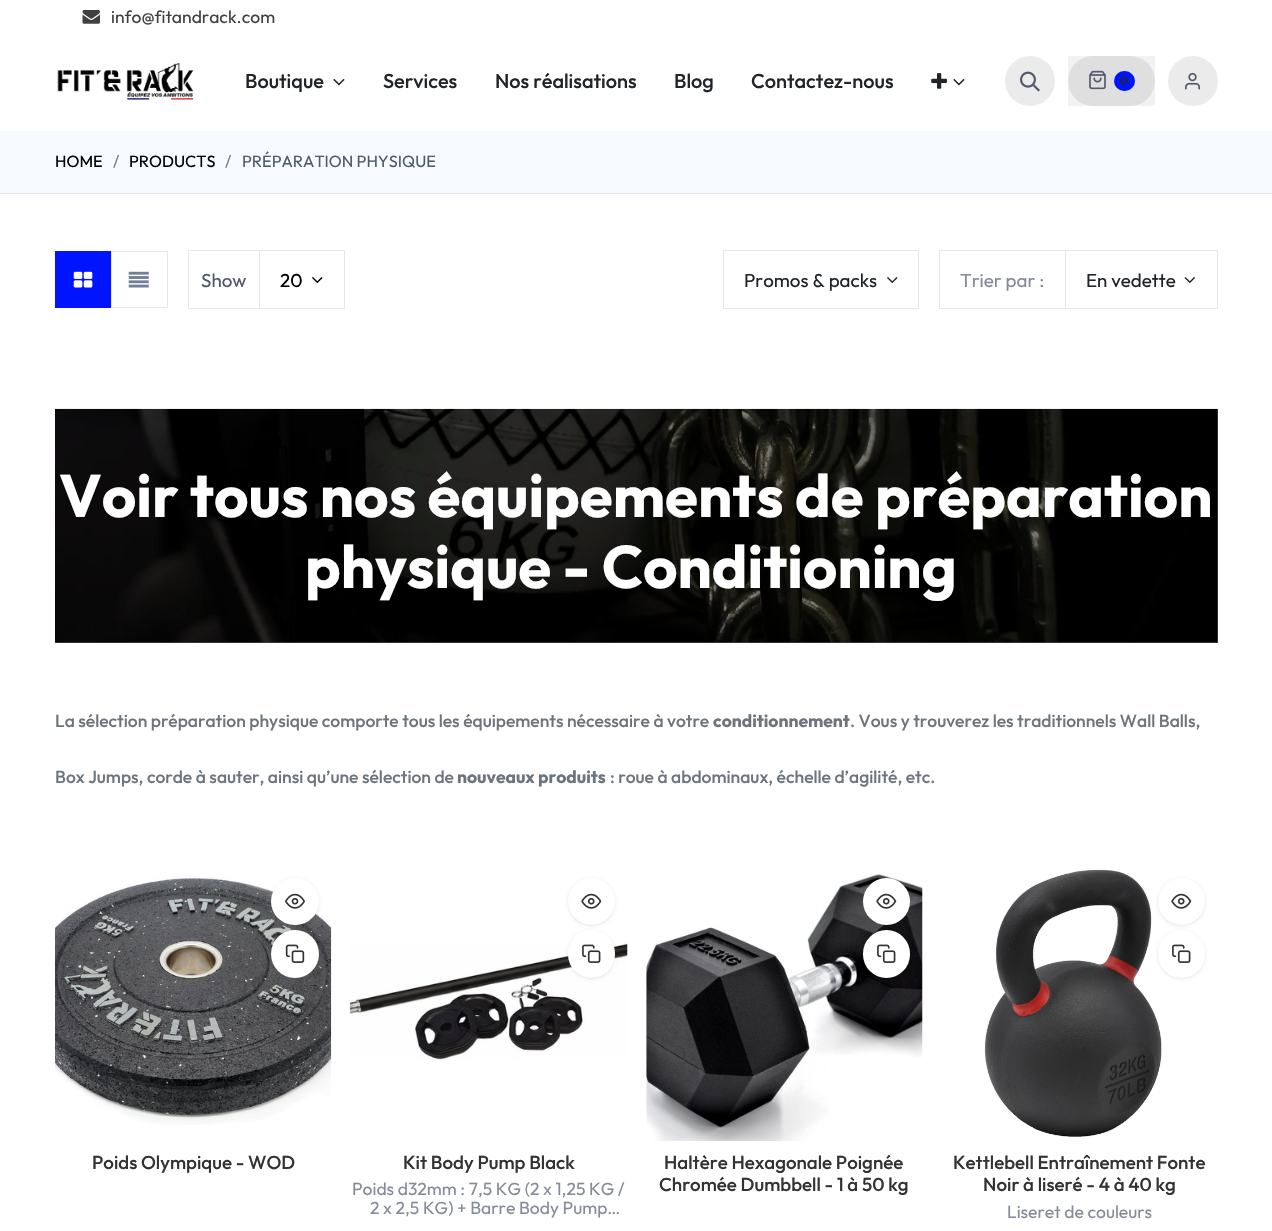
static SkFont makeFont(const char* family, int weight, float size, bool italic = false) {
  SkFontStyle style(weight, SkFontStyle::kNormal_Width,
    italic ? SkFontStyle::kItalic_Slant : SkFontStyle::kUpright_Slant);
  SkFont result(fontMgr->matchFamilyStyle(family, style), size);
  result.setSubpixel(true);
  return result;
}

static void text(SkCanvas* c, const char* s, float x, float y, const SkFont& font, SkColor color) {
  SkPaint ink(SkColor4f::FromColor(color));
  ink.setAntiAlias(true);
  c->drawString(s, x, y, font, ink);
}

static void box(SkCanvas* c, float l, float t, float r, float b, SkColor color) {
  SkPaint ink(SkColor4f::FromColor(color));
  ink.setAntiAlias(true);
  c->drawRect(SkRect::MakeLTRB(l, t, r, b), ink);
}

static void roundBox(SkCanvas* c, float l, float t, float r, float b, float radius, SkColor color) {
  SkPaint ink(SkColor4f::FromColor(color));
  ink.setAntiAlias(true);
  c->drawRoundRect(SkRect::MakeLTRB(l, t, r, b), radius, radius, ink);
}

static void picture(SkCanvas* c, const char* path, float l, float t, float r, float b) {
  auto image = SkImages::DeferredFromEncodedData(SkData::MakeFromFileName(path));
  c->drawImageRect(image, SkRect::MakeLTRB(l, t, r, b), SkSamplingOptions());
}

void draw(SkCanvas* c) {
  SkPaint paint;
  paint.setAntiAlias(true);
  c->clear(0xffffffff);
  picture(c, "img_01.png", 82, 10, 100, 24);
  SkFont face1 = makeFont("Outfit", 400, 17.5f);
  text(c, "info@fitandrack.com", 111, 23, face1, 0xff404040);
  picture(c, "img_02.png", 57, 62, 194, 100);
  SkFont face2 = makeFont("Outfit", 500, 20);
  text(c, "Boutique", 245, 88, face2, 0xff212529);
  picture(c, "img_03.png", 333, 78, 345, 86);
  text(c, "Services", 383, 88, face2, 0xff212529);
  text(c, "Nos réalisations", 495, 88, face2, 0xff212529);
  text(c, "Blog", 674, 88, face2, 0xff212529);
  text(c, "Contactez-nous", 751, 88, face2, 0xff212529);
  picture(c, "img_04.png", 931, 73, 947, 89);
  picture(c, "img_03.png", 953, 78, 965, 86);
  paint.setColor(0xffebebeb);
  c->drawCircle(1030, 81, 25, paint);
  picture(c, "img_05.png", 1020, 71, 1040, 92);
  box(c, 1068, 56, 1155, 106, 0xfff2f2f2);
  roundBox(c, 1068, 56, 1155, 106, 25, 0xffdfdfdf);
  picture(c, "img_06.png", 1089, 70, 1106, 90);
  roundBox(c, 1114, 71, 1135, 91, 10, 0xff0014ff);
  SkFont face3 = makeFont("Outfit", 700, 12);
  text(c, "0", 1120, 85, face3, 0xff212529);
  c->drawCircle(1193, 81, 25, paint);
  picture(c, "img_07.png", 1185, 72, 1200, 90);
  box(c, 0, 131, 1272, 193, 0xfff7faff);
  box(c, 0, 193, 1272, 194, 0xffe2e8f0);
  SkFont face4 = makeFont("Outfit", 400, 16.25f);
  text(c, "HOME", 55, 167, face4, 0xff000000);
  text(c, "/", 113, 167, face4, 0xff718096);
  text(c, "PRODUCTS", 129, 167, face4, 0xff000000);
  text(c, "/", 225, 167, face4, 0xff718096);
  text(c, "PRÉPARATION PHYSIQUE", 242, 167, face4, 0xff51596c);
  box(c, 55, 251, 111, 308, 0xff0014ff);
  picture(c, "img_08.png", 73, 271, 93, 288);
  paint.setStyle(SkPaint::kStroke_Style);
  paint.setStrokeWidth(1);
  paint.setColor(0xffe2e8f0);
  c->drawRect(SkRect::MakeLTRB(111.5f, 251.5f, 167.5f, 307.5f), paint);
  picture(c, "img_09.png", 128, 271, 149, 288);
  box(c, 188, 250, 259, 251, 0xffe2e8f0);
  box(c, 188, 308, 259, 309, 0xffe2e8f0);
  box(c, 188, 250, 189, 309, 0xffe2e8f0);
  SkFont face5 = makeFont("Outfit", 400, 18.75f);
  text(c, "Show", 201, 287, face5, 0xff51596c);
  c->drawRect(SkRect::MakeLTRB(259.5f, 250.5f, 344.5f, 308.5f), paint);
  text(c, "20", 280, 287, face5, 0xff000000);
  picture(c, "img_10.png", 312, 277, 323, 283);
  c->drawRect(SkRect::MakeLTRB(723.5f, 250.5f, 918.5f, 308.5f), paint);
  text(c, "Promos & packs", 744, 287, face5, 0xff212529);
  picture(c, "img_11.png", 887, 277, 898, 283);
  box(c, 939, 250, 1065, 251, 0xffe2e8f0);
  box(c, 939, 308, 1065, 309, 0xffe2e8f0);
  box(c, 939, 250, 940, 309, 0xffe2e8f0);
  text(c, "Trier par :", 960, 287, face5, 0xff858b98);
  c->drawRect(SkRect::MakeLTRB(1065.5f, 250.5f, 1217.5f, 308.5f), paint);
  text(c, "En vedette", 1086, 287, face5, 0xff212529);
  picture(c, "img_12.png", 1184, 277, 1195, 283);
  box(c, 55, 409, 1218, 643, 0xff404040);
  picture(c, "img_13.png", 55, 408, 1218, 643);
  SkFont face6 = makeFont("Outfit", 700, 60);
  text(c, "Voir tous nos équipements de préparation", 59, 517, face6, 0xffffffff);
  text(c, "physique - Conditioning", 305, 588, face6, 0xffffffff);
  SkFont face7 = makeFont("Outfit", 500, 17.5f);
  text(c, "La sélection préparation physique comporte tous les équipements nécessaire à votre", 55, 727, face7, 0xff6c757d);
  SkFont face8 = makeFont("Outfit", 700, 17.5f);
  text(c, "conditionnement", 713, 727, face8, 0xff6c757d);
  text(c, ". Vous y trouverez les traditionnels Wall Balls,", 850, 727, face7, 0xff6c757d);
  text(c, "Box Jumps, corde à sauter, ainsi qu’une sélection de", 55, 783, face7, 0xff6c757d);
  text(c, "nouveaux produits", 457, 783, face8, 0xff6c757d);
  text(c, ": roue à abdominaux, échelle d’agilité, etc.", 610, 783, face7, 0xff6c757d);
  picture(c, "img_16.png", 55, 876, 332, 1125);
  paint.setStyle(SkPaint::kFill_Style);
  paint.setColor(0x1a333333);
  paint.setMaskFilter(SkMaskFilter::MakeBlur(kNormal_SkBlurStyle, 1));
  c->drawRoundRect(SkRect::MakeLTRB(273, 880, 318, 925), 22.5f, 22.5f, paint);
  paint.setMaskFilter(nullptr);
  paint.setMaskFilter(SkMaskFilter::MakeBlur(kNormal_SkBlurStyle, 2));
  c->drawRoundRect(SkRect::MakeLTRB(271, 879, 319, 926), 23.5f, 23.5f, paint);
  paint.setMaskFilter(nullptr);
  roundBox(c, 271, 878, 319, 925, 23.5f, 0xffffffff);
  picture(c, "img_14.png", 285, 893, 305, 909);
  paint.setMaskFilter(SkMaskFilter::MakeBlur(kNormal_SkBlurStyle, 1));
  c->drawRoundRect(SkRect::MakeLTRB(273, 933, 318, 978), 22.5f, 22.5f, paint);
  paint.setMaskFilter(nullptr);
  paint.setMaskFilter(SkMaskFilter::MakeBlur(kNormal_SkBlurStyle, 2));
  c->drawRoundRect(SkRect::MakeLTRB(271, 931, 319, 979), 24, 24, paint);
  paint.setMaskFilter(nullptr);
  paint.setColor(0xffffffff);
  c->drawCircle(295, 954, 24, paint);
  picture(c, "img_15.png", 285, 944, 305, 963);
  SkFont face9 = makeFont("Outfit", 500, 18.75f);
  text(c, "Poids Olympique - WOD", 92, 1169, face9, 0xff333333);
  paint.setColor(0x1a333333);
  paint.setMaskFilter(SkMaskFilter::MakeBlur(kNormal_SkBlurStyle, 1));
  c->drawRoundRect(SkRect::MakeLTRB(569, 880, 614, 925), 22.5f, 22.5f, paint);
  paint.setMaskFilter(nullptr);
  paint.setMaskFilter(SkMaskFilter::MakeBlur(kNormal_SkBlurStyle, 2));
  c->drawRoundRect(SkRect::MakeLTRB(568, 879, 615, 926), 23.5f, 23.5f, paint);
  paint.setMaskFilter(nullptr);
  paint.setColor(0xffffffff);
  c->drawCircle(591.5f, 901.5f, 23.5f, paint);
  picture(c, "img_17.png", 581, 893, 602, 909);
  picture(c, "img_19.png", 350, 943, 628, 1060);
  paint.setColor(0x1a333333);
  paint.setMaskFilter(SkMaskFilter::MakeBlur(kNormal_SkBlurStyle, 1));
  c->drawRoundRect(SkRect::MakeLTRB(569, 933, 614, 978), 22.5f, 22.5f, paint);
  paint.setMaskFilter(nullptr);
  paint.setMaskFilter(SkMaskFilter::MakeBlur(kNormal_SkBlurStyle, 2));
  c->drawRoundRect(SkRect::MakeLTRB(568, 931, 615, 979), 23.5f, 23.5f, paint);
  paint.setMaskFilter(nullptr);
  roundBox(c, 568, 930, 615, 978, 23.5f, 0xffffffff);
  picture(c, "img_18.png", 582, 944, 601, 963);
  text(c, "Kit Body Pump Black", 403, 1169, face9, 0xff333333);
  text(c, "Poids d32mm : 7,5 KG (2 x 1,25 KG /", 352, 1195, face1, 0xff858b98);
  text(c, "2 x 2,5 KG) + Barre Body Pump…", 370, 1214, face1, 0xff858b98);
  picture(c, "img_20.png", 646, 874, 923, 1141);
  paint.setColor(0xffffffff);
  c->drawCircle(886.5f, 901.5f, 23.5f, paint);
  picture(c, "img_17.png", 876, 893, 897, 909);
  roundBox(c, 863, 930, 910, 978, 23.5f, 0xffffffff);
  picture(c, "img_18.png", 877, 944, 896, 963);
  text(c, "Haltère Hexagonale Poignée", 664, 1169, face9, 0xff333333);
  text(c, "Chromée Dumbbell - 1 à 50 kg", 659, 1191, face9, 0xff333333);
  picture(c, "img_21.png", 984, 869, 1162, 1137);
  paint.setColor(0x1a333333);
  paint.setMaskFilter(SkMaskFilter::MakeBlur(kNormal_SkBlurStyle, 1));
  c->drawRoundRect(SkRect::MakeLTRB(1159, 880, 1204, 925), 22.5f, 22.5f, paint);
  paint.setMaskFilter(nullptr);
  paint.setMaskFilter(SkMaskFilter::MakeBlur(kNormal_SkBlurStyle, 2));
  c->drawRoundRect(SkRect::MakeLTRB(1158, 879, 1205, 926), 23.5f, 23.5f, paint);
  paint.setMaskFilter(nullptr);
  paint.setColor(0xffffffff);
  c->drawCircle(1181.5f, 901.5f, 23.5f, paint);
  picture(c, "img_17.png", 1171, 893, 1192, 909);
  paint.setColor(0x1a333333);
  paint.setMaskFilter(SkMaskFilter::MakeBlur(kNormal_SkBlurStyle, 1));
  c->drawRoundRect(SkRect::MakeLTRB(1159, 933, 1204, 978), 22.5f, 22.5f, paint);
  paint.setMaskFilter(nullptr);
  paint.setMaskFilter(SkMaskFilter::MakeBlur(kNormal_SkBlurStyle, 2));
  c->drawRoundRect(SkRect::MakeLTRB(1158, 931, 1205, 979), 23.5f, 23.5f, paint);
  paint.setMaskFilter(nullptr);
  roundBox(c, 1158, 930, 1205, 978, 23.5f, 0xffffffff);
  picture(c, "img_18.png", 1172, 944, 1191, 963);
  text(c, "Kettlebell Entraînement Fonte", 953, 1169, face9, 0xff333333);
  text(c, "Noir à liseré - 4 à 40 kg", 983, 1191, face9, 0xff333333);
  text(c, "Liseret de couleurs", 1007, 1218, face1, 0xff858b98);
}
